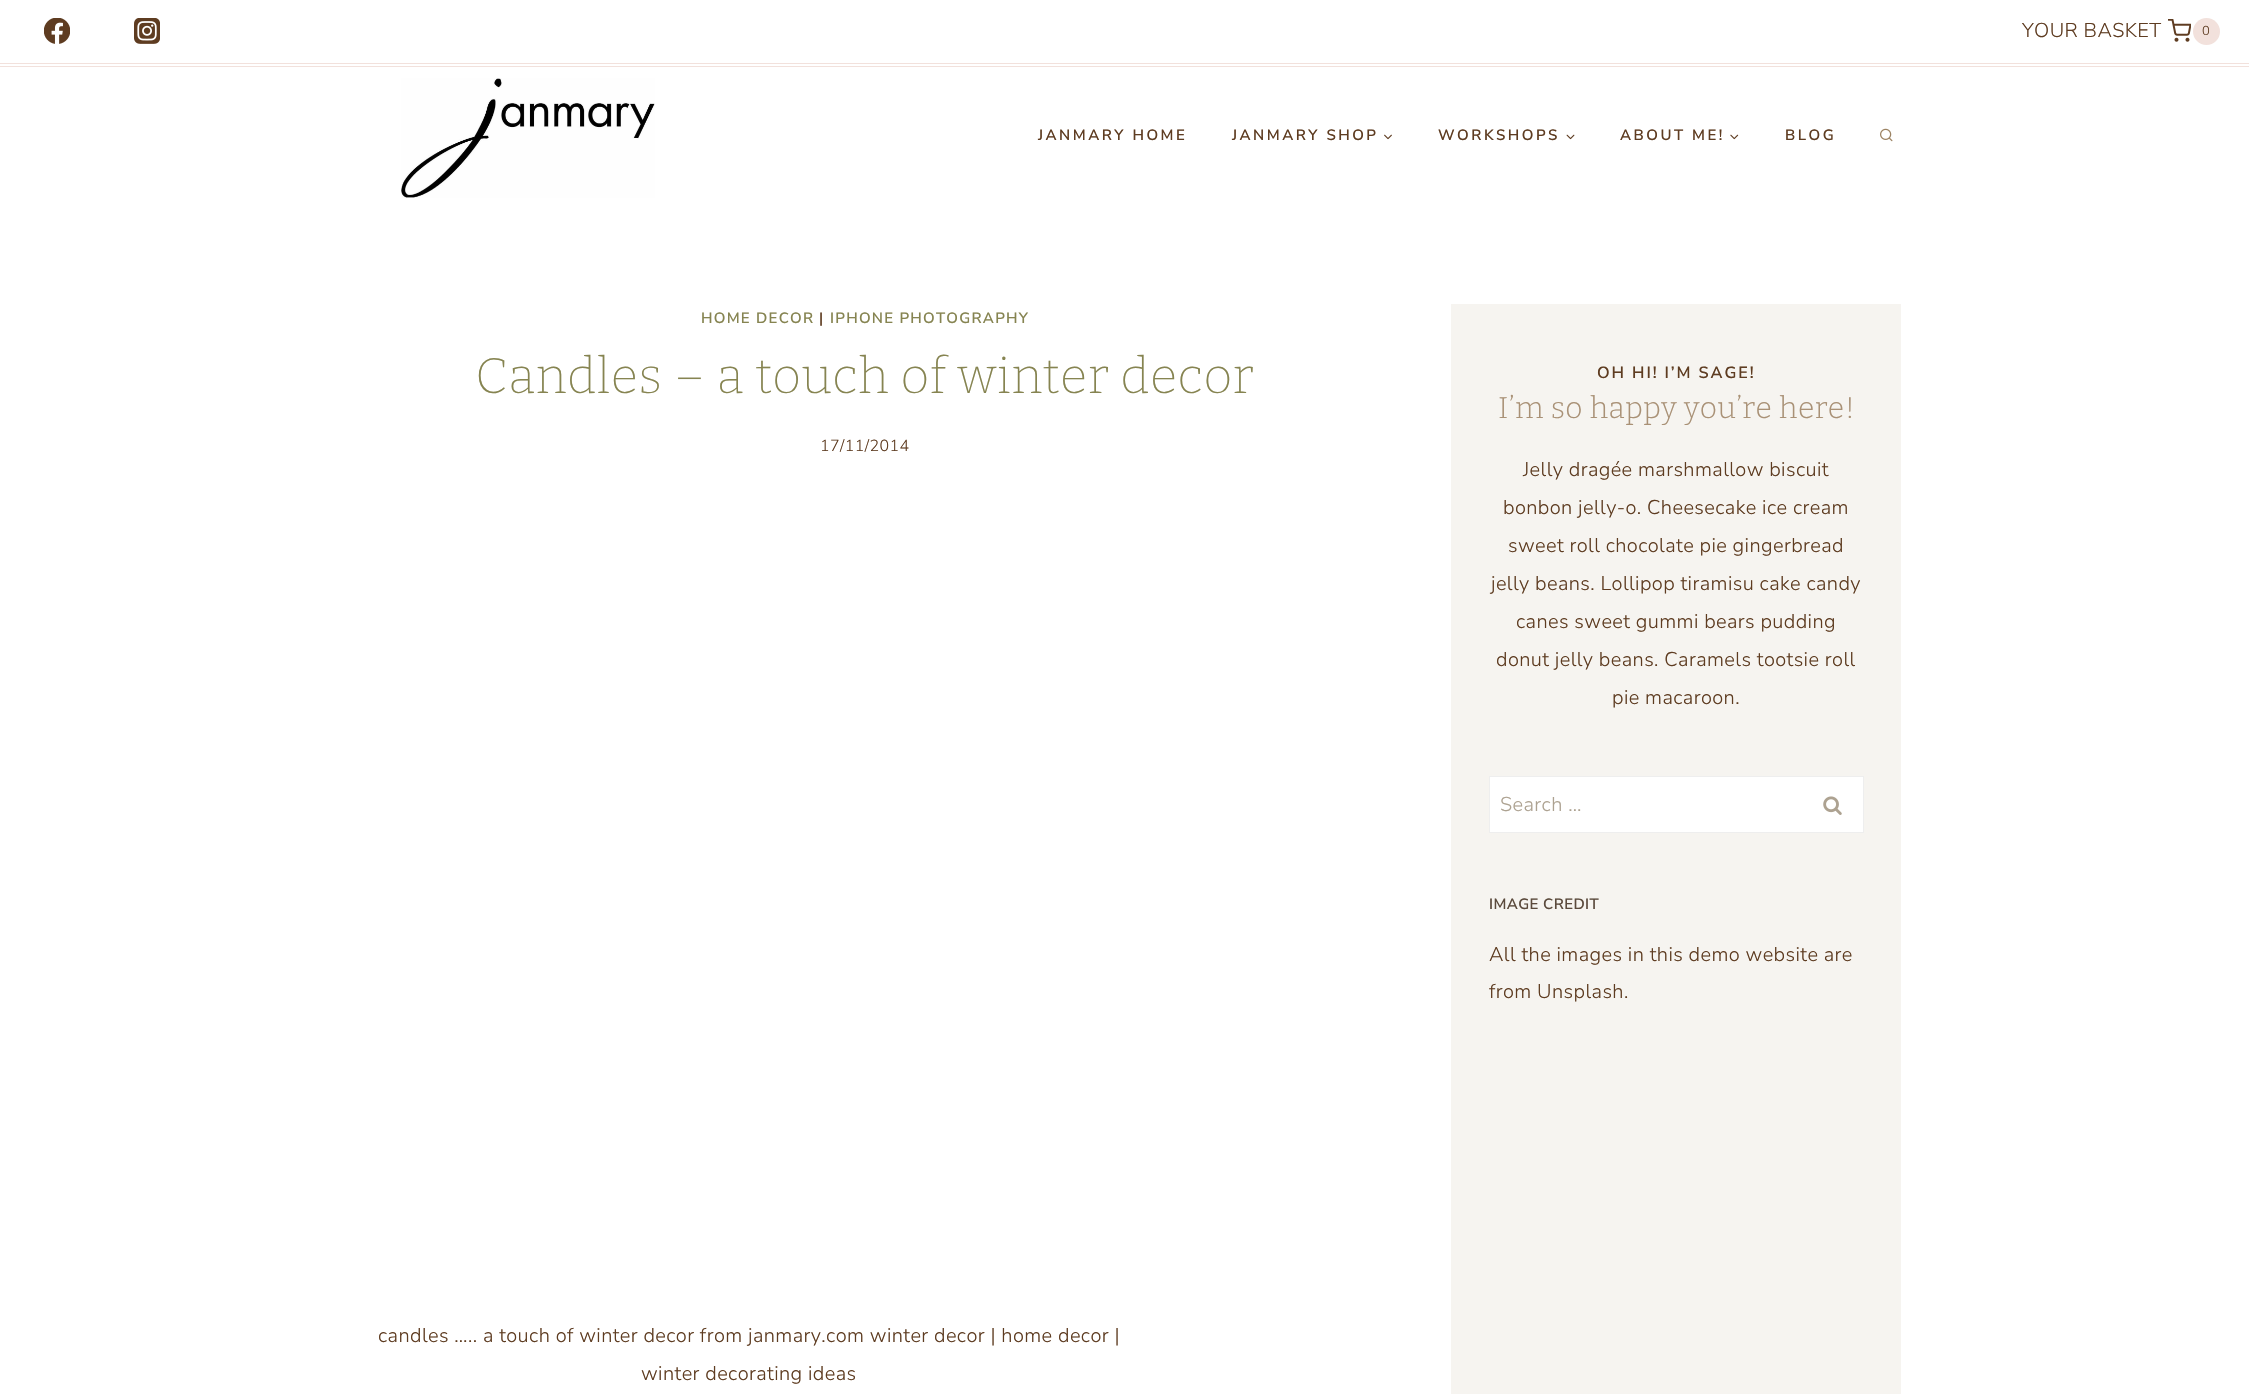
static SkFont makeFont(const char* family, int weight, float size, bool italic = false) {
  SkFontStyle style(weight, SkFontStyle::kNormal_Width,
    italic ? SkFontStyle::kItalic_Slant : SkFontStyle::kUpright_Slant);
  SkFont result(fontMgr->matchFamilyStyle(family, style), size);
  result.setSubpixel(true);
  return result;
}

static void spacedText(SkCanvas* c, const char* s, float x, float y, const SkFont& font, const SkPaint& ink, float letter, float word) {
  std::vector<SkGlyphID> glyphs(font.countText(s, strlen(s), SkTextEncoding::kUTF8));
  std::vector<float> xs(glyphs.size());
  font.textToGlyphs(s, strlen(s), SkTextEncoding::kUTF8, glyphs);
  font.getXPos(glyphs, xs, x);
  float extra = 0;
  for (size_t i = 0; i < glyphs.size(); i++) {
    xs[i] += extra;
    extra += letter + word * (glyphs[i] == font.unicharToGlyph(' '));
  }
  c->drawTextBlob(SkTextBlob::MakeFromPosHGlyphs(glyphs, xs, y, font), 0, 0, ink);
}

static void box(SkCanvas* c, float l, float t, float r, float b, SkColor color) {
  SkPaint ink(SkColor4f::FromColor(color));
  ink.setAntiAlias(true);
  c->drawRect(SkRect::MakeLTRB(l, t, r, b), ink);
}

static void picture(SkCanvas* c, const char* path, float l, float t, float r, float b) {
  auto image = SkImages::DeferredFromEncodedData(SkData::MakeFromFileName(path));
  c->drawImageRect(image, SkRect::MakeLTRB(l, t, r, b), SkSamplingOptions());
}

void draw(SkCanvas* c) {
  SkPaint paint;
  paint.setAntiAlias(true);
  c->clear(0xffffffff);
  box(c, 0, 63, 2249, 64, 0xfff2e1dc);
  box(c, 0, 66, 2249, 67, 0xfff2e1dc);
  picture(c, "img_01.png", 44, 18, 70, 44);
  picture(c, "img_02.png", 134, 18, 160, 44);
  SkFont face1 = makeFont("Nunito Sans", 300, 20);
  paint.setColor(0xff5e3c21);
  spacedText(c, "YOUR BASKET", 2022, 37, face1, paint, 0.4f, 0);
  picture(c, "img_03.png", 2168, 19, 2191, 42);
  paint.setColor(0xfff2e1dc);
  c->drawCircle(2206.5f, 31.5f, 13.5f, paint);
  SkFont face2 = makeFont("Nunito Sans", 300, 13);
  paint.setColor(0xff5e3c21);
  spacedText(c, "0", 2202, 35, face2, paint, 0.4f, 0);
  picture(c, "img_04.png", 401, 78, 655, 198);
  SkFont face3 = makeFont("Nunito Sans", 600, 15);
  spacedText(c, "JANMARY HOME", 1038, 140, face3, paint, 2.5f, 0);
  spacedText(c, "JANMARY SHOP", 1232, 140, face3, paint, 2.5f, 0);
  picture(c, "img_05.png", 1384, 134, 1392, 140);
  spacedText(c, "WORKSHOPS", 1438, 140, face3, paint, 2.5f, 0);
  picture(c, "img_06.png", 1566, 134, 1575, 140);
  spacedText(c, "ABOUT ME!", 1620, 140, face3, paint, 2.5f, 0);
  picture(c, "img_07.png", 1730, 134, 1739, 140);
  spacedText(c, "BLOG", 1785, 140, face3, paint, 2.5f, 0);
  picture(c, "img_08.png", 1880, 128, 1893, 142);
  paint.setColor(0xff868451);
  spacedText(c, "HOME DECOR", 701, 323, face3, paint, 1.25f, 0);
  paint.setColor(0xff5e3c21);
  spacedText(c, "|", 819, 323, face3, paint, 1.25f, 0);
  paint.setColor(0xff868451);
  spacedText(c, "IPHONE PHOTOGRAPHY", 830, 323, face3, paint, 1.25f, 0);
  SkFont face4 = makeFont("Bitter", 200, 50);
  spacedText(c, "Candles – a touch of winter decor", 475, 393, face4, paint, 0.4f, 0);
  SkFont face5 = makeFont("Nunito Sans", 300, 16);
  paint.setColor(0xff5e3c21);
  spacedText(c, "17/11/2014", 820, 451, face5, paint, 0.4f, 0);
  spacedText(c, "candles ….. a touch of winter decor from janmary.com winter decor | home decor |", 378, 1342, face1, paint, 0.4f, 0);
  spacedText(c, "winter decorating ideas", 641, 1380, face1, paint, 0.4f, 0);
  box(c, 1451, 304, 1901, 1394, 0xfff6f4f0);
  SkFont face6 = makeFont("Nunito Sans", 600, 16.25f);
  spacedText(c, "OH HI! I’M SAGE!", 1597, 378, face6, paint, 1.9f, 0);
  SkFont face7 = makeFont("Bitter", 300, 30);
  paint.setColor(0xffa99176);
  spacedText(c, "I’m so happy you’re here!", 1498, 418, face7, paint, 0.4f, 0);
  paint.setColor(0xff5e3c21);
  spacedText(c, "Jelly dragée marshmallow biscuit", 1523, 476, face1, paint, 0.4f, 0);
  spacedText(c, "bonbon jelly-o. Cheesecake ice cream", 1503, 514, face1, paint, 0.4f, 0);
  spacedText(c, "sweet roll chocolate pie gingerbread", 1508, 552, face1, paint, 0.4f, 0);
  spacedText(c, "jelly beans. Lollipop tiramisu cake candy", 1491, 590, face1, paint, 0.4f, 0);
  spacedText(c, "canes sweet gummi bears pudding", 1516, 628, face1, paint, 0.4f, 0);
  spacedText(c, "donut jelly beans. Caramels tootsie roll", 1496, 666, face1, paint, 0.4f, 0);
  spacedText(c, "pie macaroon.", 1612, 704, face1, paint, 0.4f, 0);
  paint.setColor(0xffffffff);
  c->drawRect(SkRect::MakeLTRB(1489.5f, 776.5f, 1863.5f, 832.5f), paint);
  paint.setStyle(SkPaint::kStroke_Style);
  paint.setStrokeWidth(1);
  paint.setColor(0xffeeeeee);
  c->drawRect(SkRect::MakeLTRB(1489.5f, 776.5f, 1863.5f, 832.5f), paint);
  paint.setStyle(SkPaint::kFill_Style);
  paint.setColor(0xffada291);
  spacedText(c, "Search …", 1500, 811, face1, paint, 0.4f, 0);
  picture(c, "img_09.png", 1823, 796, 1842, 815);
  paint.setColor(0xff5b4a3c);
  spacedText(c, "IMAGE CREDIT", 1489, 909, face3, paint, 0.4f, 0);
  paint.setColor(0xff5e3c21);
  spacedText(c, "All the images in this demo website are", 1489, 961, face1, paint, 0.4f, 0);
  spacedText(c, "from Unsplash.", 1489, 998, face1, paint, 0.4f, 0);
}
